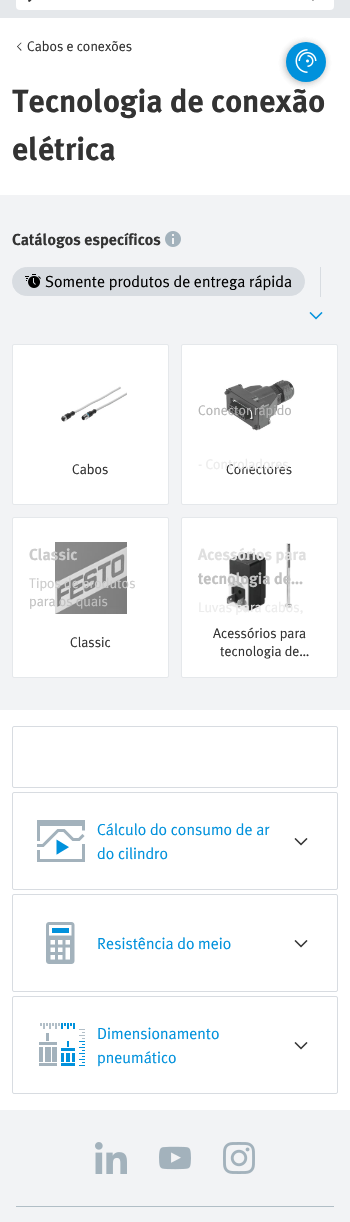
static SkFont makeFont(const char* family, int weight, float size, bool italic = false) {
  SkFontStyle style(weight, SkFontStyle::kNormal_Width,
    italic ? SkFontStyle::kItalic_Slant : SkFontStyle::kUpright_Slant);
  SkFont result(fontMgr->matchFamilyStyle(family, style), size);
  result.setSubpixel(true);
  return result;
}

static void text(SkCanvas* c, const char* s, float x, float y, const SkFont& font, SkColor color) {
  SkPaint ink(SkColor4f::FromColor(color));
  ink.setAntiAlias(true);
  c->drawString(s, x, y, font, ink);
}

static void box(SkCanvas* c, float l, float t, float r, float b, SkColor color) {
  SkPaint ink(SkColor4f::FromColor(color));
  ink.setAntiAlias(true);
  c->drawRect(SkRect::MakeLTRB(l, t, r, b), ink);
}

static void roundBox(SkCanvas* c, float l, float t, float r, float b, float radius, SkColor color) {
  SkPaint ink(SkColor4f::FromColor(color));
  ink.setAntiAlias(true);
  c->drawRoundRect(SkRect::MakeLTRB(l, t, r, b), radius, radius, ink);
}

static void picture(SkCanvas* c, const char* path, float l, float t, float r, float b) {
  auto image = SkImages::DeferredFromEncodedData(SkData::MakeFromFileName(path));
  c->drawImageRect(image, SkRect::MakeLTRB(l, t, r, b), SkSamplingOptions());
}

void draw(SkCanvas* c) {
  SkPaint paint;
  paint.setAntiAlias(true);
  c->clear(0xffffffff);
  box(c, 0, 0, 350, 18, 0xffe5e8eb);
  roundBox(c, 16, -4, 334, 10, 4, 0xffffffff);
  picture(c, "img_01.png", 28, 0, 32, 2);
  picture(c, "img_02.png", 312, 0, 314, 1);
  paint.setColor(0xff333333);
  c->drawPath(SkPathBuilder().moveTo(21, 51).lineTo(17, 46.5f).lineTo(17.5f, 46).lineTo(21.5f, 50).close().detach(), paint);
  c->drawPath(SkPathBuilder().moveTo(17.5f, 47).lineTo(17, 46.5f).lineTo(21, 42.5f).lineTo(21.5f, 43).close().detach(), paint);
  SkFont face1 = makeFont("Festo", 400, 14);
  text(c, "Cabos e conexões", 27, 51, face1, 0xff333333);
  paint.setColor(0x33333333);
  paint.setMaskFilter(SkMaskFilter::MakeBlur(kNormal_SkBlurStyle, 3.5f));
  c->drawRoundRect(SkRect::MakeLTRB(285, 43, 325, 83), 20, 20, paint);
  paint.setMaskFilter(nullptr);
  paint.setMaskFilter(SkMaskFilter::MakeBlur(kNormal_SkBlurStyle, 3.5f));
  c->drawRoundRect(SkRect::MakeLTRB(285, 43, 325, 83), 20, 20, paint);
  paint.setMaskFilter(nullptr);
  paint.setColor(0xff0091dc);
  c->drawCircle(306, 62, 20, paint);
  picture(c, "img_03.png", 295, 49, 317, 73);
  SkFont face2 = makeFont("Festo", 700, 32);
  text(c, "Tecnologia de conexão", 12, 112, face2, 0xff333333);
  text(c, "elétrica", 12, 160, face2, 0xff333333);
  box(c, 0, 195, 350, 710, 0xfff2f3f5);
  SkFont face3 = makeFont("Festo", 700, 16);
  text(c, "Catálogos específicos", 12, 245, face3, 0xff333333);
  picture(c, "img_04.png", 165, 231, 181, 247);
  paint.setColor(0xffd8dce1);
  c->drawRoundRect(SkRect::MakeLTRB(12.5f, 267.5f, 304.5f, 295.5f), 14, 14, paint);
  paint.setStyle(SkPaint::kStroke_Style);
  paint.setStrokeWidth(1);
  c->drawRoundRect(SkRect::MakeLTRB(12.5f, 267.5f, 304.5f, 295.5f), 14, 14, paint);
  picture(c, "img_05.png", 25, 274, 41, 288);
  SkFont face4 = makeFont("Festo", 400, 16);
  text(c, "Somente produtos de entrega rápida", 45, 287, face4, 0xff000000);
  box(c, 320, 267, 321, 297, 0xffd8dce1);
  picture(c, "img_06.png", 309, 312, 323, 320);
  paint.setStyle(SkPaint::kFill_Style);
  paint.setColor(0xffffffff);
  c->drawRoundRect(SkRect::MakeLTRB(12.5f, 344.5f, 168.5f, 504.5f), 1.5f, 1.5f, paint);
  paint.setStyle(SkPaint::kStroke_Style);
  paint.setColor(0xffe5e8eb);
  c->drawRoundRect(SkRect::MakeLTRB(12.5f, 344.5f, 168.5f, 504.5f), 1.5f, 1.5f, paint);
  picture(c, "img_07.png", 61, 386, 127, 422);
  text(c, "Cabos", 72, 474, face1, 0xff333333);
  paint.setStyle(SkPaint::kFill_Style);
  paint.setColor(0xffffffff);
  c->drawRoundRect(SkRect::MakeLTRB(181.5f, 344.5f, 337.5f, 504.5f), 1.5f, 1.5f, paint);
  paint.setStyle(SkPaint::kStroke_Style);
  paint.setColor(0xffe5e8eb);
  c->drawRoundRect(SkRect::MakeLTRB(181.5f, 344.5f, 337.5f, 504.5f), 1.5f, 1.5f, paint);
  picture(c, "img_08.png", 224, 379, 295, 431);
  text(c, "Conector rápido", 198, 415, face1, 0xffb4b4b4);
  text(c, "Conectores", 226, 474, face1, 0xff333333);
  text(c, "- Controladores", 198, 469, face1, 0xffececec);
  paint.setStyle(SkPaint::kFill_Style);
  paint.setColor(0xffffffff);
  c->drawRoundRect(SkRect::MakeLTRB(12.5f, 517.5f, 168.5f, 677.5f), 1.5f, 1.5f, paint);
  paint.setStyle(SkPaint::kStroke_Style);
  paint.setColor(0xffe5e8eb);
  c->drawRoundRect(SkRect::MakeLTRB(12.5f, 517.5f, 168.5f, 677.5f), 1.5f, 1.5f, paint);
  picture(c, "img_09.png", 55, 542, 127, 614);
  text(c, "Classic", 29, 560, face3, 0xffcbcbcb);
  text(c, "Tipos de produtos", 29, 588, face1, 0xffcbcbcb);
  text(c, "para os quais", 29, 606, face1, 0xffc1c1c1);
  text(c, "Classic", 70, 647, face1, 0xff333333);
  paint.setStyle(SkPaint::kFill_Style);
  paint.setColor(0xffffffff);
  c->drawRoundRect(SkRect::MakeLTRB(181.5f, 517.5f, 337.5f, 677.5f), 1.5f, 1.5f, paint);
  paint.setStyle(SkPaint::kStroke_Style);
  paint.setColor(0xffe5e8eb);
  c->drawRoundRect(SkRect::MakeLTRB(181.5f, 517.5f, 337.5f, 677.5f), 1.5f, 1.5f, paint);
  picture(c, "img_10.png", 226, 543, 292, 612);
  text(c, "Acessórios para", 198, 560, face3, 0xffdfdfdf);
  text(c, "tecnologia de…", 198, 584, face3, 0xffc1c1c1);
  text(c, "Luvas para cabos,", 198, 612, face1, 0xffececec);
  text(c, "Acessórios para", 213, 638, face1, 0xff333333);
  text(c, "tecnologia de…", 220, 656, face1, 0xff333333);
  paint.setColor(0xffd8dce1);
  c->drawRoundRect(SkRect::MakeLTRB(12.5f, 726.5f, 337.5f, 787.5f), 1.5f, 1.5f, paint);
  c->drawRoundRect(SkRect::MakeLTRB(12.5f, 792.5f, 337.5f, 889.5f), 1.5f, 1.5f, paint);
  picture(c, "img_11.png", 37, 820, 85, 862);
  text(c, "Cálculo do consumo de ar", 97, 835, face4, 0xff0091dc);
  text(c, "do cilindro", 97, 859, face4, 0xff0091dc);
  picture(c, "img_12.png", 294, 838, 308, 846);
  c->drawRoundRect(SkRect::MakeLTRB(12.5f, 894.5f, 337.5f, 991.5f), 1.5f, 1.5f, paint);
  picture(c, "img_13.png", 46, 922, 75, 964);
  text(c, "Resistência do meio", 97, 949, face4, 0xff0091dc);
  picture(c, "img_12.png", 294, 940, 308, 948);
  c->drawRoundRect(SkRect::MakeLTRB(12.5f, 996.5f, 337.5f, 1093.5f), 1.5f, 1.5f, paint);
  picture(c, "img_14.png", 39, 1023, 85, 1066);
  text(c, "Dimensionamento", 97, 1039, face4, 0xff0091dc);
  text(c, "pneumático", 97, 1063, face4, 0xff0091dc);
  picture(c, "img_12.png", 294, 1042, 308, 1050);
  box(c, 0, 1110, 350, 1222, 0xfff2f3f5);
  picture(c, "img_15.png", 95, 1142, 127, 1174);
  picture(c, "img_16.png", 159, 1146, 191, 1170);
  picture(c, "img_17.png", 223, 1142, 255, 1174);
  box(c, 16, 1206, 334, 1207, 0xffb1bec6);
}
